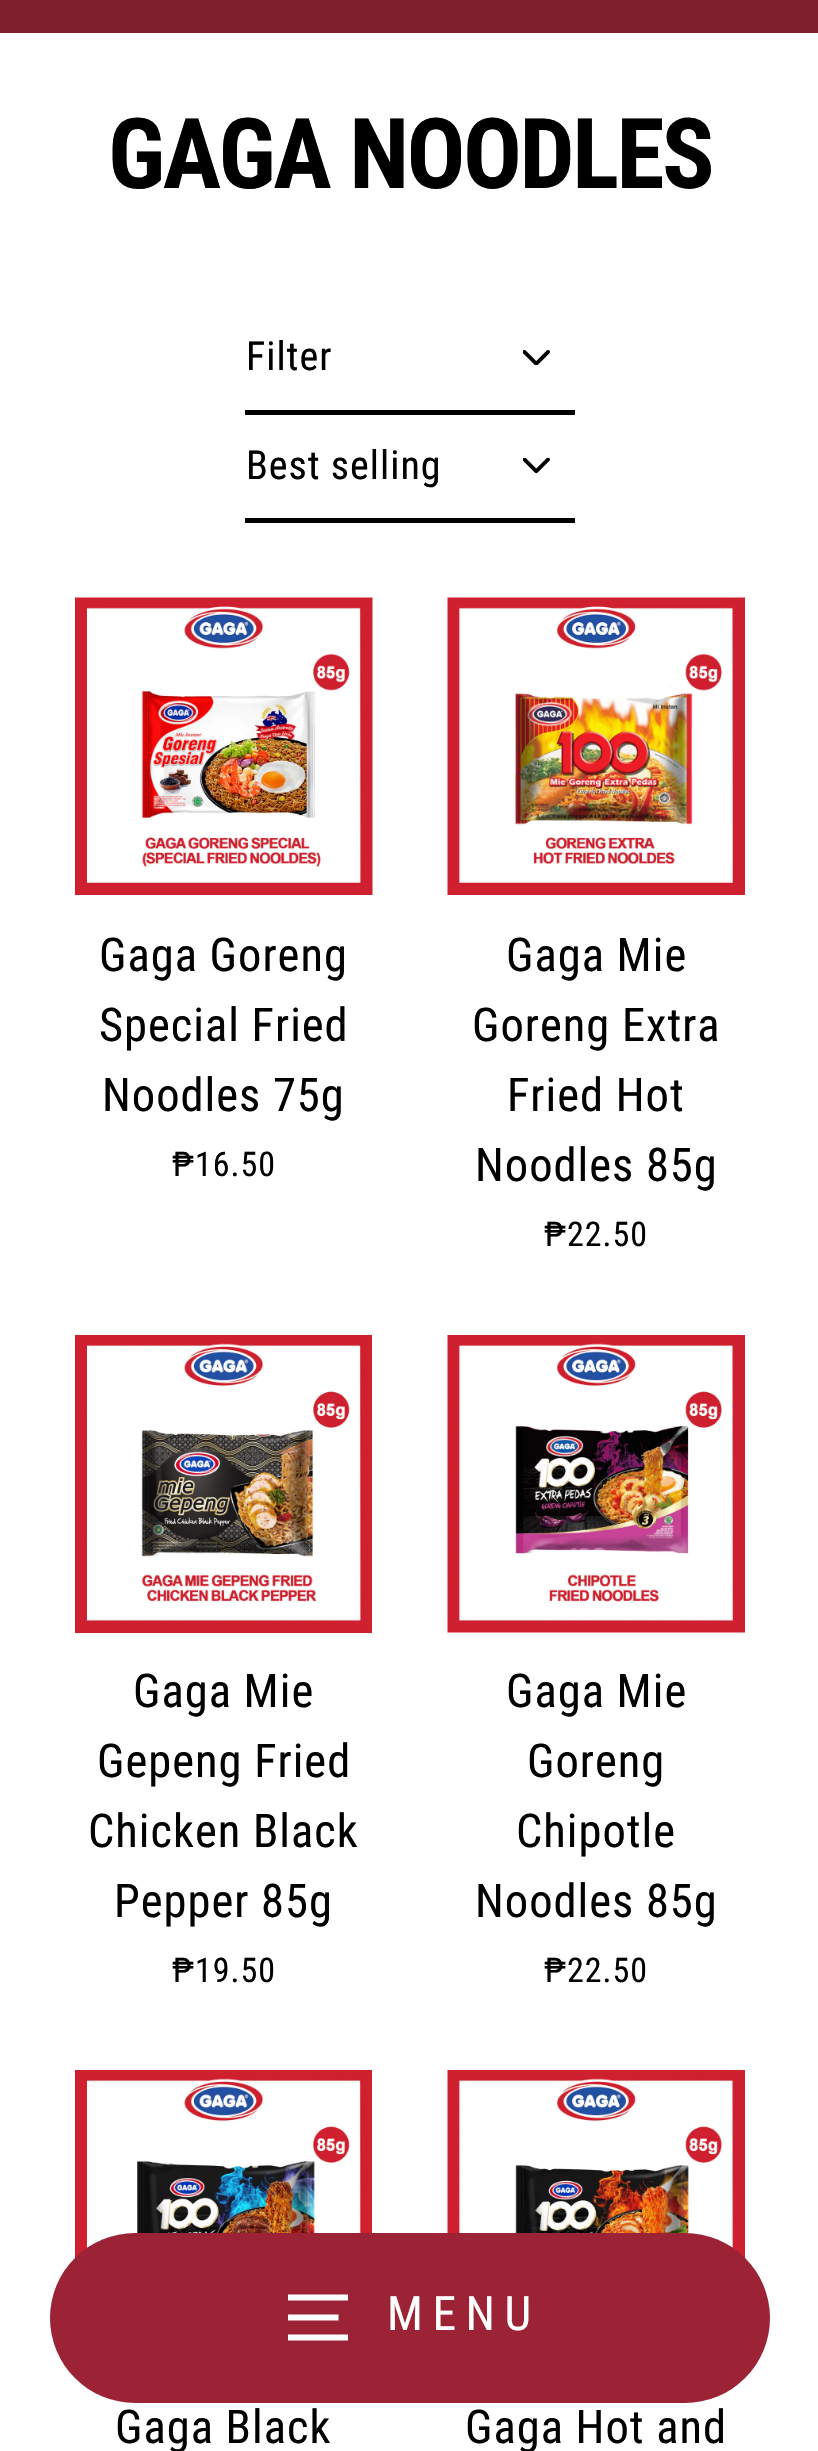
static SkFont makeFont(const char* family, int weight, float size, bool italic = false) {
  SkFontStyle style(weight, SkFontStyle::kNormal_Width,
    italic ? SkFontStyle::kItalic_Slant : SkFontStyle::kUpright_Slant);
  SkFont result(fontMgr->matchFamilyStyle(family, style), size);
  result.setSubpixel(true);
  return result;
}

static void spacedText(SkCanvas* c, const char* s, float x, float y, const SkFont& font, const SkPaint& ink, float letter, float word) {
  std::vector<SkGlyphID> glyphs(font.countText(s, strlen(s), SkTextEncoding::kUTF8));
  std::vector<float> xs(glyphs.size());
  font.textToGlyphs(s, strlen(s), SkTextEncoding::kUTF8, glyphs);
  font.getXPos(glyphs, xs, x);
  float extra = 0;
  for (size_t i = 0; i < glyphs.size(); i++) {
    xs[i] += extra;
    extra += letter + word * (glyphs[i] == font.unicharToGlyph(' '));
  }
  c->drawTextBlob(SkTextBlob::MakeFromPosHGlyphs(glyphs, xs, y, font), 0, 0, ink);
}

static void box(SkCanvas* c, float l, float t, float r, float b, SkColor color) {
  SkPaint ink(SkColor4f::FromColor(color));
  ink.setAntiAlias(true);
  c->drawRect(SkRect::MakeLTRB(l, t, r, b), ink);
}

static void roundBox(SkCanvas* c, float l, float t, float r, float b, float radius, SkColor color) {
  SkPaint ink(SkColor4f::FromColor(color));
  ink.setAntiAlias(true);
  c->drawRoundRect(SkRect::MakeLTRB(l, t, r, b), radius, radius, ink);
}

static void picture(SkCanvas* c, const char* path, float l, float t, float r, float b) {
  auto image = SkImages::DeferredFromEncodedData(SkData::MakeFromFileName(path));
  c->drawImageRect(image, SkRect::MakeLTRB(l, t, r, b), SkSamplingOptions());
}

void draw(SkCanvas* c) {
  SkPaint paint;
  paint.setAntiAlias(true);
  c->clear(0xffffffff);
  SkFont face1 = makeFont("Roboto Condensed", 700, 97.75f);
  paint.setColor(0xff000000);
  spacedText(c, "GAGA NOODLES", 108, 188, face1, paint, -2.5f, 0);
  picture(c, "img_01.png", 523, 350, 550, 365);
  box(c, 245, 410, 575, 415, 0xff000000);
  SkFont face2 = makeFont("Roboto Condensed", 400, 40);
  spacedText(c, "Filter", 246, 370, face2, paint, 1, 0);
  picture(c, "img_02.png", 523, 458, 550, 474);
  box(c, 245, 518, 575, 523, 0xff000000);
  spacedText(c, "Best selling", 246, 479, face2, paint, 1, 0);
  picture(c, "img_03.png", 75, 597, 373, 895);
  SkFont face3 = makeFont("Roboto Condensed", 400, 46.5f);
  spacedText(c, "Gaga Goreng", 99, 971, face3, paint, 1, 0);
  spacedText(c, "Special Fried", 99, 1041, face3, paint, 1, 0);
  spacedText(c, "Noodles 75g", 102, 1111, face3, paint, 1, 0);
  SkFont face4 = makeFont("Roboto Condensed", 400, 34);
  spacedText(c, "₱16.50", 172, 1176, face4, paint, 1, 0);
  picture(c, "img_04.png", 447, 597, 745, 895);
  spacedText(c, "Gaga Mie", 506, 971, face3, paint, 1, 0);
  spacedText(c, "Goreng Extra", 472, 1041, face3, paint, 1, 0);
  spacedText(c, "Fried Hot", 507, 1111, face3, paint, 1, 0);
  spacedText(c, "Noodles 85g", 475, 1181, face3, paint, 1, 0);
  spacedText(c, "₱22.50", 544, 1246, face4, paint, 1, 0);
  picture(c, "img_05.png", 75, 1335, 372, 1633);
  spacedText(c, "Gaga Mie", 133, 1707, face3, paint, 1, 0);
  spacedText(c, "Gepeng Fried", 97, 1777, face3, paint, 1, 0);
  spacedText(c, "Chicken Black", 88, 1847, face3, paint, 1, 0);
  spacedText(c, "Pepper 85g", 114, 1917, face3, paint, 1, 0);
  spacedText(c, "₱19.50", 172, 1982, face4, paint, 1, 0);
  picture(c, "img_06.png", 447, 1335, 745, 1633);
  spacedText(c, "Gaga Mie", 506, 1707, face3, paint, 1, 0);
  spacedText(c, "Goreng", 527, 1777, face3, paint, 1, 0);
  spacedText(c, "Chipotle", 516, 1847, face3, paint, 1, 0);
  spacedText(c, "Noodles 85g", 475, 1917, face3, paint, 1, 0);
  spacedText(c, "₱22.50", 544, 1982, face4, paint, 1, 0);
  picture(c, "img_07.png", 75, 2070, 372, 2258);
  spacedText(c, "Gaga Black", 115, 2443, face3, paint, 1, 0);
  picture(c, "img_08.png", 447, 2070, 745, 2258);
  spacedText(c, "Gaga Hot and", 465, 2443, face3, paint, 1, 0);
  box(c, 0, 0, 818, 33, 0xff7d1e2c);
  roundBox(c, 50, 2233, 770, 2403, 85, 0xff9b2335);
  paint.setStyle(SkPaint::kStroke_Style);
  paint.setStrokeWidth(5.9f);
  paint.setColor(0xffffffff);
  c->drawPath(SkPathBuilder().moveTo(288, 2297.5f).lineTo(348, 2297.5f).moveTo(288, 2317.5f).lineTo(338.5f, 2317.5f).moveTo(288, 2337.5f).lineTo(348, 2337.5f).detach(), paint);
  SkFont face5 = makeFont("Roboto Condensed", 400, 47.5f);
  paint.setStyle(SkPaint::kFill_Style);
  spacedText(c, "MENU", 387, 2330, face5, paint, 9.5f, 0);
}
